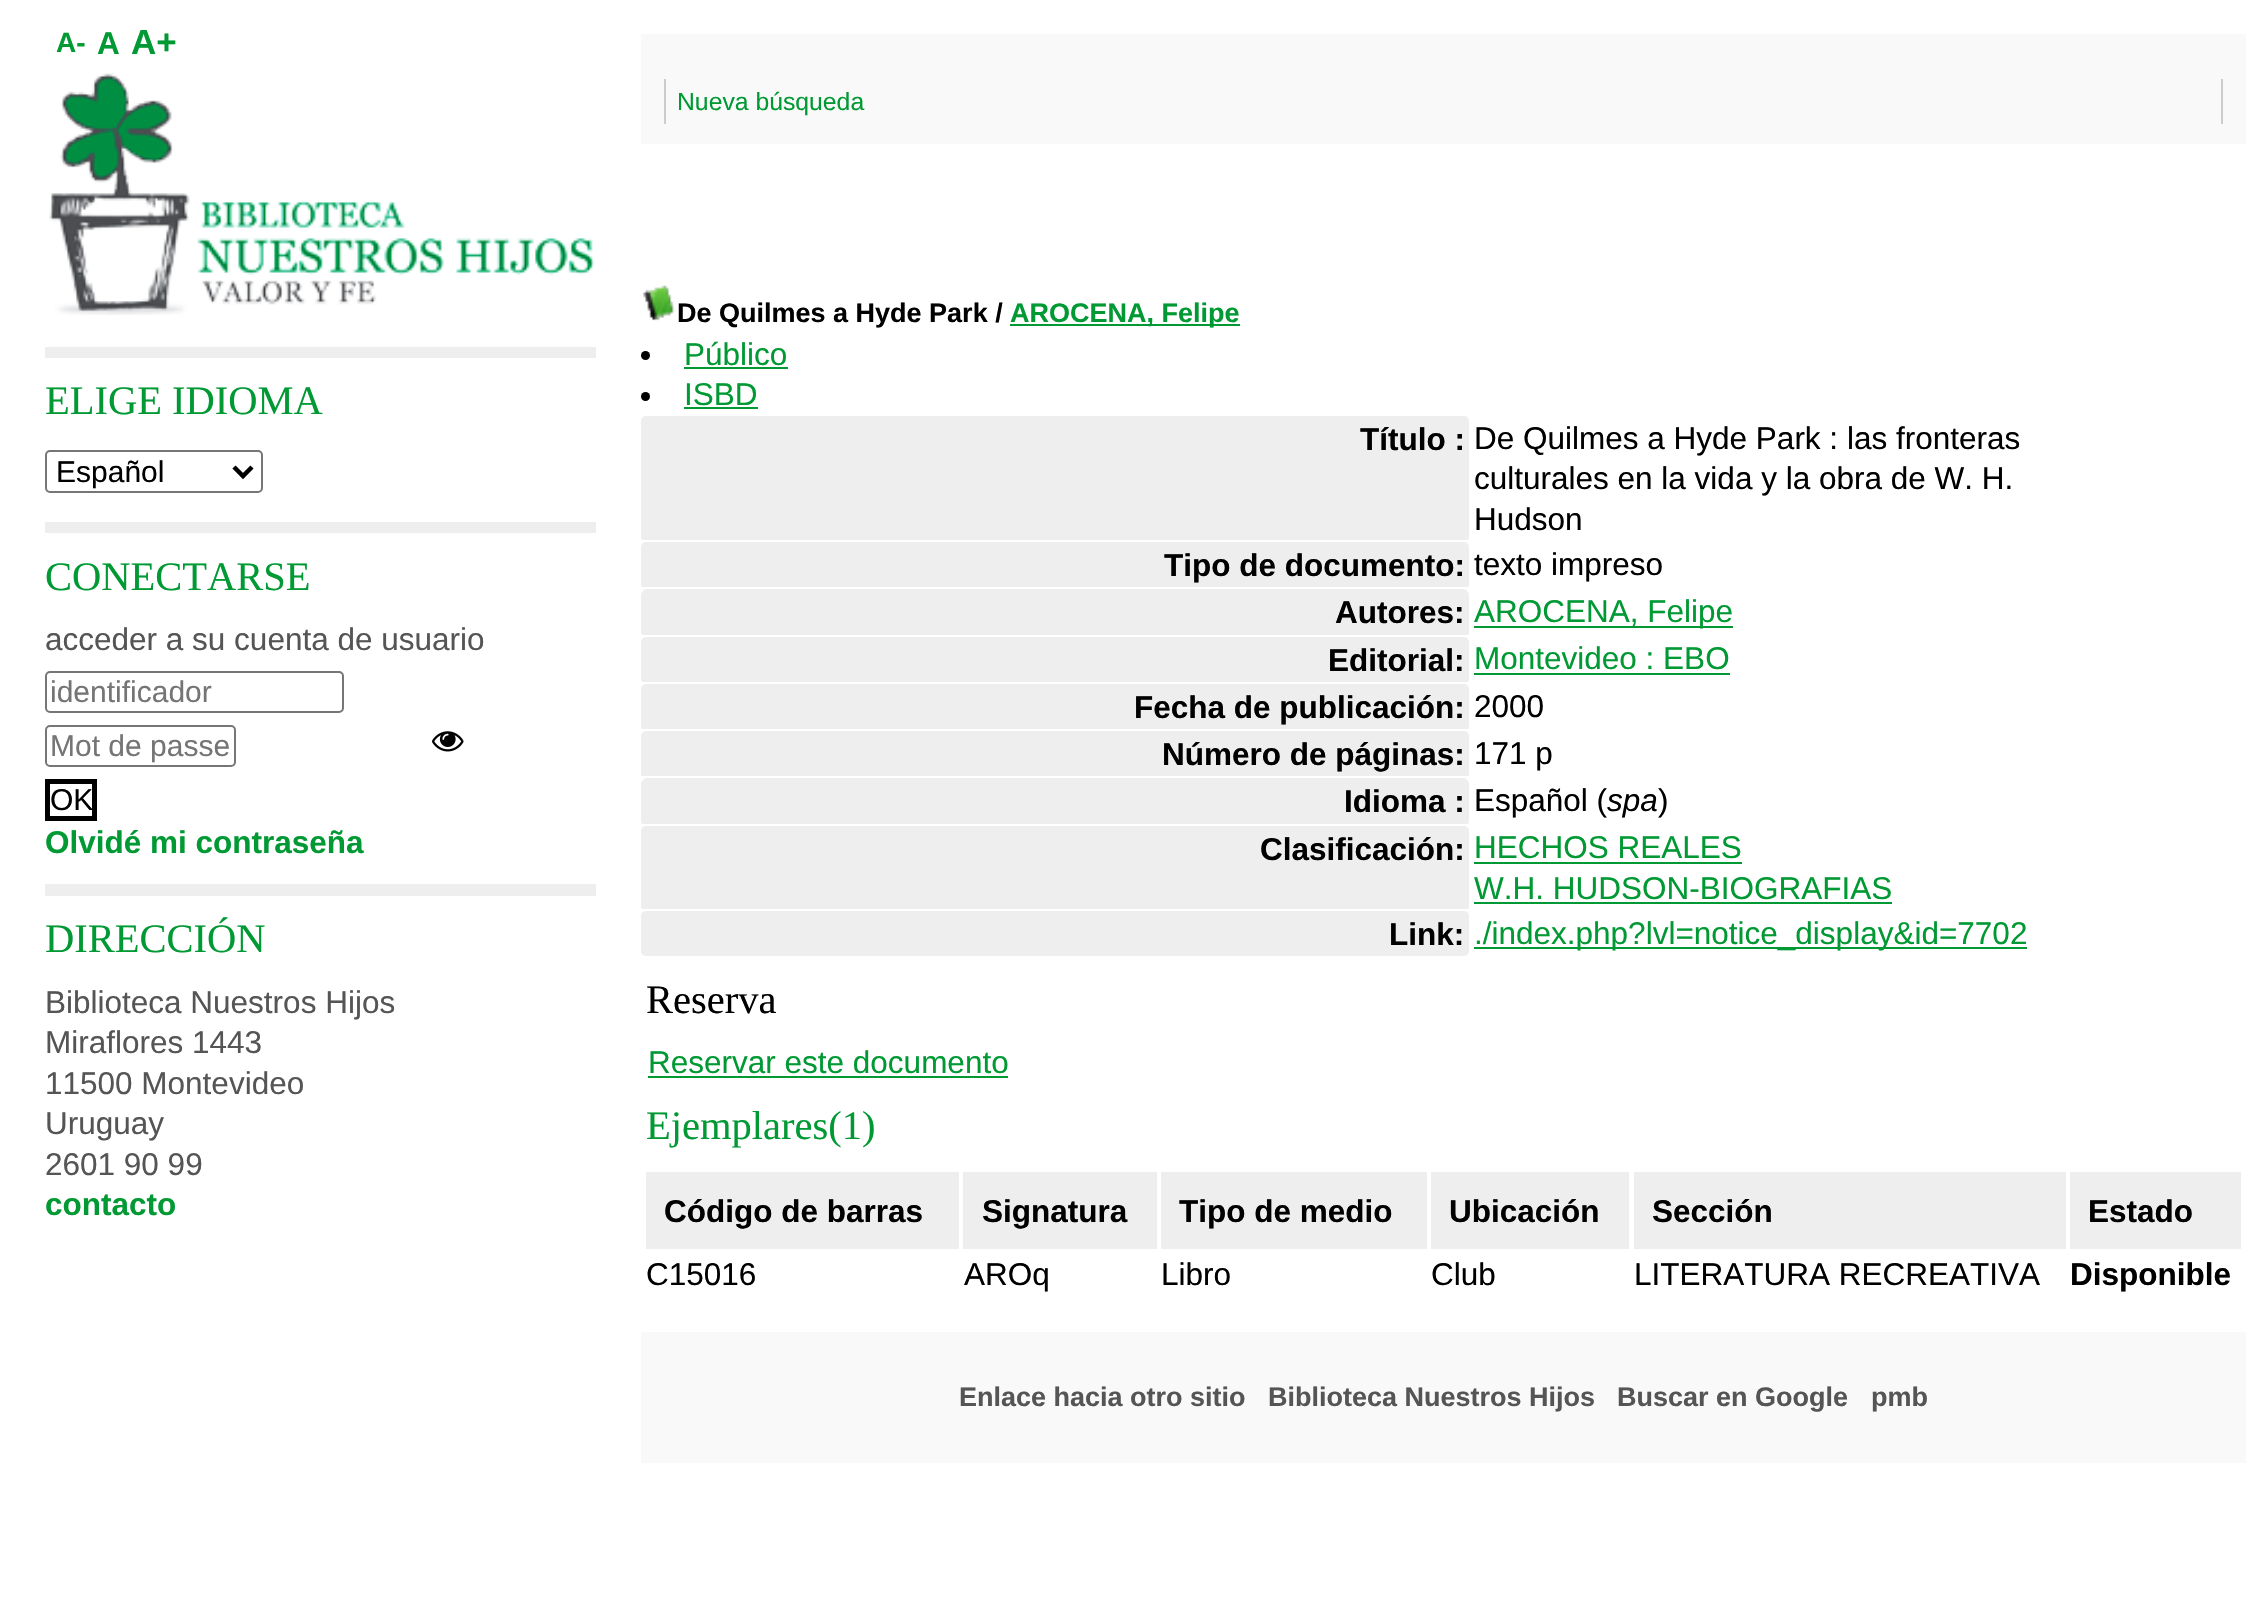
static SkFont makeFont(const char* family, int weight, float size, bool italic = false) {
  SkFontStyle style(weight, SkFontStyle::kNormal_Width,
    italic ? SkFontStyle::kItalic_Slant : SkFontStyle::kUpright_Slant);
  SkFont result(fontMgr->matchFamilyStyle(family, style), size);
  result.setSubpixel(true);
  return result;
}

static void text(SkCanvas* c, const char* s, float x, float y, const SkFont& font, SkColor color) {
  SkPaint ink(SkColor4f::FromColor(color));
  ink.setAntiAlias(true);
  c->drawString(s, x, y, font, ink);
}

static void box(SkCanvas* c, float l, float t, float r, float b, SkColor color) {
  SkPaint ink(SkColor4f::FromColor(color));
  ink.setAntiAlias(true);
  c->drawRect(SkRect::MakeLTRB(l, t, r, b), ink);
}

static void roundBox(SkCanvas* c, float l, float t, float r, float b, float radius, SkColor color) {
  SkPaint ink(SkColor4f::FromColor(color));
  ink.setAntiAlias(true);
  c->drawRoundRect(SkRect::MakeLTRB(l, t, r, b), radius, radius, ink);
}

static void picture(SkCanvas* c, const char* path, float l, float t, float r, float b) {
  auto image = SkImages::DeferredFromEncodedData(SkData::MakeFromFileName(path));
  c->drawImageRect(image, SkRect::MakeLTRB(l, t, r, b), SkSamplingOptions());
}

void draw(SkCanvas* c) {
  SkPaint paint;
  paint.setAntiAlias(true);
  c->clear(0xffffffff);
  SkFont face1 = makeFont("Liberation Sans", 700, 28);
  text(c, "A-", 56, 52, face1, 0xff009933);
  SkFont face2 = makeFont("Liberation Sans", 700, 31.5f);
  text(c, "A", 97, 54, face2, 0xff009933);
  SkFont face3 = makeFont("Liberation Sans", 700, 35);
  text(c, "A+", 131, 54, face3, 0xff009933);
  picture(c, "img_01.png", 49, 73, 595, 315);
  box(c, 45, 347, 596, 358, 0xffeeeeee);
  SkFont face4 = makeFont("Liberation Serif", 400, 40.5f);
  text(c, "ELIGE IDIOMA", 45, 414, face4, 0xff009933);
  paint.setStyle(SkPaint::kStroke_Style);
  paint.setStrokeWidth(2);
  paint.setColor(0xff767676);
  c->drawRoundRect(SkRect::MakeLTRB(46, 451, 262, 492), 4, 4, paint);
  paint.setStrokeWidth(4.5f);
  paint.setColor(0xff000000);
  c->drawPath(SkPathBuilder().moveTo(234, 467).lineTo(243, 476).lineTo(252, 467).detach(), paint);
  SkFont face5 = makeFont("Liberation Sans", 400, 30);
  text(c, "Español", 56, 482, face5, 0xff000000);
  box(c, 45, 522, 596, 533, 0xffeeeeee);
  text(c, "CONECTARSE", 45, 590, face4, 0xff009933);
  SkFont face6 = makeFont("Liberation Sans", 400, 31.5f);
  text(c, "acceder a su cuenta de usuario", 45, 650, face6, 0xff555555);
  paint.setStrokeWidth(2);
  paint.setColor(0xff767676);
  c->drawRoundRect(SkRect::MakeLTRB(46, 672, 343, 712), 4, 4, paint);
  text(c, "identificador", 50, 702, face5, 0xff757575);
  c->drawRoundRect(SkRect::MakeLTRB(46, 726, 235, 766), 4, 4, paint);
  text(c, "Mot de passe", 50, 756, face5, 0xff757575);
  picture(c, "img_02.png", 432, 731, 464, 752);
  paint.setStrokeWidth(5);
  paint.setColor(0xff000000);
  c->drawRect(SkRect::MakeLTRB(47.5f, 781.5f, 94.5f, 818.5f), paint);
  text(c, "OK", 50, 810, face5, 0xff000000);
  text(c, "Olvidé mi contraseña", 45, 853, face2, 0xff009933);
  box(c, 45, 884, 596, 896, 0xffeeeeee);
  text(c, "DIRECCIÓN", 45, 952, face4, 0xff009933);
  text(c, "Biblioteca Nuestros Hijos", 45, 1013, face6, 0xff555555);
  text(c, "Miraflores 1443", 45, 1053, face6, 0xff555555);
  text(c, "11500 Montevideo", 45, 1094, face6, 0xff555555);
  text(c, "Uruguay", 45, 1134, face6, 0xff555555);
  text(c, "2601 90 99", 45, 1175, face6, 0xff555555);
  text(c, "contacto", 45, 1215, face2, 0xff009933);
  box(c, 641, 34, 2246, 144, 0xfff9f9f9);
  box(c, 2221, 79, 2223, 124, 0xffcccccc);
  box(c, 664, 79, 666, 124, 0xffcccccc);
  SkFont face7 = makeFont("Liberation Sans", 400, 24.75f);
  text(c, "Nueva búsqueda", 677, 110, face7, 0xff009933);
  picture(c, "img_03.png", 643, 285, 674, 321);
  SkFont face8 = makeFont("Liberation Sans", 700, 27);
  text(c, "De Quilmes a Hyde Park /", 677, 322, face8, 0xff000000);
  box(c, 1010, 324, 1240, 326, 0xff009933);
  text(c, "AROCENA, Felipe", 1010, 322, face8, 0xff009933);
  paint.setStyle(SkPaint::kFill_Style);
  c->drawCircle(645.5f, 355.5f, 4.5f, paint);
  text(c, "Público", 684, 365, face6, 0xff009933);
  box(c, 684, 367, 788, 369, 0xff009933);
  c->drawCircle(645.5f, 396.5f, 4.5f, paint);
  text(c, "ISBD", 684, 405, face6, 0xff009933);
  box(c, 684, 407, 758, 409, 0xff009933);
  roundBox(c, 641, 416, 1469, 542, 5, 0xffeeeeee);
  text(c, "Título :", 1360, 450, face2, 0xff000000);
  text(c, "De Quilmes a Hyde Park : las fronteras", 1474, 449, face6, 0xff000000);
  text(c, "culturales en la vida y la obra de W. H.", 1474, 489, face6, 0xff000000);
  text(c, "Hudson", 1474, 530, face6, 0xff000000);
  roundBox(c, 641, 542, 1469, 590, 5, 0xffeeeeee);
  box(c, 641, 540, 1472, 542, 0xffffffff);
  text(c, "Tipo de documento:", 1164, 576, face2, 0xff000000);
  text(c, "texto impreso", 1474, 575, face6, 0xff000000);
  roundBox(c, 641, 590, 1469, 637, 5, 0xffeeeeee);
  box(c, 641, 587, 1472, 589, 0xffffffff);
  text(c, "Autores:", 1335, 623, face2, 0xff000000);
  box(c, 1474, 626, 1733, 628, 0xff009933);
  text(c, "AROCENA, Felipe", 1474, 622, face6, 0xff009933);
  roundBox(c, 641, 637, 1469, 684, 5, 0xffeeeeee);
  box(c, 641, 635, 1472, 637, 0xffffffff);
  text(c, "Editorial:", 1328, 671, face2, 0xff000000);
  text(c, "Montevideo : EBO", 1474, 669, face6, 0xff009933);
  box(c, 1474, 673, 1730, 675, 0xff009933);
  roundBox(c, 641, 684, 1469, 731, 5, 0xffeeeeee);
  box(c, 641, 682, 1472, 684, 0xffffffff);
  text(c, "Fecha de publicación:", 1134, 718, face2, 0xff000000);
  text(c, "2000", 1474, 717, face6, 0xff000000);
  roundBox(c, 641, 731, 1469, 779, 5, 0xffeeeeee);
  box(c, 641, 729, 1472, 731, 0xffffffff);
  text(c, "Número de páginas:", 1162, 765, face2, 0xff000000);
  text(c, "171 p", 1474, 764, face6, 0xff000000);
  roundBox(c, 641, 779, 1469, 826, 5, 0xffeeeeee);
  box(c, 641, 776, 1472, 778, 0xffffffff);
  text(c, "Idioma :", 1344, 812, face2, 0xff000000);
  text(c, "Español (", 1474, 811, face6, 0xff000000);
  SkFont face9 = makeFont("Liberation Sans", 400, 31.5f, true);
  text(c, "spa", 1607, 811, face9, 0xff000000);
  text(c, ")", 1658, 811, face6, 0xff000000);
  roundBox(c, 641, 826, 1469, 911, 5, 0xffeeeeee);
  box(c, 641, 824, 1472, 826, 0xffffffff);
  text(c, "Clasificación:", 1260, 860, face2, 0xff000000);
  text(c, "HECHOS REALES", 1474, 858, face6, 0xff009933);
  box(c, 1474, 862, 1742, 864, 0xff009933);
  text(c, "W.H. HUDSON-BIOGRAFIAS", 1474, 899, face6, 0xff009933);
  box(c, 1474, 902, 1892, 904, 0xff009933);
  roundBox(c, 641, 911, 1469, 956, 5, 0xffeeeeee);
  box(c, 641, 909, 1472, 911, 0xffffffff);
  text(c, "Link:", 1389, 945, face2, 0xff000000);
  box(c, 1474, 947, 2027, 949, 0xff009933);
  text(c, "./index.php?lvl=notice_display&id=7702", 1474, 944, face6, 0xff009933);
  text(c, "Reserva", 646, 1013, face4, 0xff000000);
  text(c, "Reservar este documento", 648, 1073, face6, 0xff009933);
  box(c, 648, 1076, 1008, 1078, 0xff009933);
  text(c, "Ejemplares(1)", 646, 1139, face4, 0xff009933);
  box(c, 646, 1172, 959, 1249, 0xffeeeeee);
  text(c, "Código de barras", 664, 1222, face2, 0xff000000);
  box(c, 963, 1172, 1157, 1249, 0xffeeeeee);
  text(c, "Signatura", 982, 1222, face2, 0xff000000);
  box(c, 1161, 1172, 1427, 1249, 0xffeeeeee);
  text(c, "Tipo de medio", 1179, 1222, face2, 0xff000000);
  box(c, 1431, 1172, 1629, 1249, 0xffeeeeee);
  text(c, "Ubicación", 1449, 1222, face2, 0xff000000);
  box(c, 1634, 1172, 2066, 1249, 0xffeeeeee);
  text(c, "Sección", 1652, 1222, face2, 0xff000000);
  box(c, 2070, 1172, 2241, 1249, 0xffeeeeee);
  text(c, "Estado", 2088, 1222, face2, 0xff000000);
  text(c, "C15016", 646, 1285, face6, 0xff000000);
  text(c, "AROq", 964, 1285, face6, 0xff000000);
  text(c, "Libro", 1161, 1285, face6, 0xff000000);
  text(c, "Club", 1431, 1285, face6, 0xff000000);
  text(c, "LITERATURA RECREATIVA", 1634, 1285, face6, 0xff000000);
  text(c, "Disponible", 2070, 1285, face2, 0xff000000);
  box(c, 641, 1332, 2246, 1463, 0xfff9f9f9);
  text(c, "Enlace hacia otro sitio", 959, 1406, face8, 0xff555555);
  text(c, "Biblioteca Nuestros Hijos", 1268, 1406, face8, 0xff555555);
  text(c, "Buscar en Google", 1617, 1406, face8, 0xff555555);
  text(c, "pmb", 1871, 1406, face8, 0xff555555);
}
